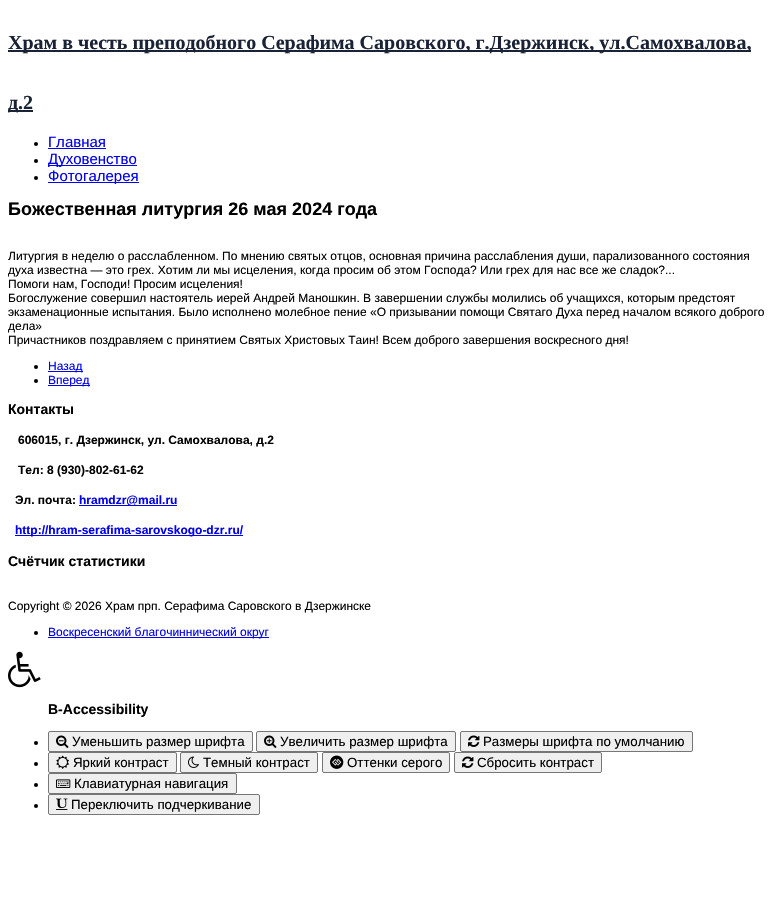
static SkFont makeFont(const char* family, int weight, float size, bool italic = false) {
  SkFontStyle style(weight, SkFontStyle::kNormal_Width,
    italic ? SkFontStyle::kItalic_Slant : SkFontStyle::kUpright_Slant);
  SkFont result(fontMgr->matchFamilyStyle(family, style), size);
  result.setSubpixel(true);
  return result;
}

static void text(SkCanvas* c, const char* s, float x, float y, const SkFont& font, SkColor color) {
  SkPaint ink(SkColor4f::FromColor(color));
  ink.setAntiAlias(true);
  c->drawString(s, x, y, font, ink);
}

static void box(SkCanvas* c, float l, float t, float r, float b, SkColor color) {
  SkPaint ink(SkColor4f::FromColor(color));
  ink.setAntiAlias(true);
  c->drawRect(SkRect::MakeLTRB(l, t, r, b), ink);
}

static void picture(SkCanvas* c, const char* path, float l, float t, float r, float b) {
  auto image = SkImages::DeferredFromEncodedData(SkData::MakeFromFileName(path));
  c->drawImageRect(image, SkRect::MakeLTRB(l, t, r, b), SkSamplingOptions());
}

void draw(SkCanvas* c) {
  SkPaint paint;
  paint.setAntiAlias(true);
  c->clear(0xffffffff);
  box(c, 8, 50, 751, 52, 0xff1a2236);
  SkFont face1 = makeFont("Liberation Serif", 700, 20);
  text(c, "Храм в честь преподобного Серафима Саровского, г.Дзержинск, ул.Самохвалова,", 8, 49, face1, 0xff1a2236);
  box(c, 8, 110, 33, 112, 0xff1a2236);
  text(c, "д.2", 8, 109, face1, 0xff1a2236);
  paint.setColor(0xff000000);
  c->drawCircle(36, 144, 2, paint);
  SkFont face2 = makeFont("Liberation Sans", 400, 15);
  text(c, "Главная", 48, 147, face2, 0xff0000ee);
  box(c, 48, 148, 106, 149, 0xff0000ee);
  c->drawCircle(36, 161, 2, paint);
  box(c, 48, 165, 137, 166, 0xff0000ee);
  text(c, "Духовенство", 48, 164, face2, 0xff0000ee);
  c->drawCircle(36, 178, 2, paint);
  box(c, 48, 182, 139, 183, 0xff0000ee);
  text(c, "Фотогалерея", 48, 181, face2, 0xff0000ee);
  SkFont face3 = makeFont("Liberation Sans", 700, 18);
  text(c, "Божественная литургия 26 мая 2024 года", 8, 215, face3, 0xff000000);
  SkFont face4 = makeFont("Liberation Sans", 400, 12);
  text(c, "Литургия в неделю о расслабленном. По мнению святых отцов, основная причина расслабления души, парализованного состояния", 8, 260, face4, 0xff000000);
  text(c, "духа известна — это грех. Хотим ли мы исцеления, когда просим об этом Господа? Или грех для нас все же сладок?...", 8, 274, face4, 0xff000000);
  text(c, "Помоги нам, Господи! Просим исцеления!", 8, 288, face4, 0xff000000);
  text(c, "Богослужение совершил настоятель иерей Андрей Маношкин. В завершении службы молились об учащихся, которым предстоят", 8, 302, face4, 0xff000000);
  text(c, "экзаменационные испытания. Было исполнено молебное пение «О призывании помощи Святаго Духа перед началом всякого доброго", 8, 316, face4, 0xff000000);
  text(c, "дела»", 8, 330, face4, 0xff000000);
  text(c, "Причастников поздравляем с принятием Святых Христовых Таин! Всем доброго завершения воскресного дня!", 8, 344, face4, 0xff000000);
  c->drawCircle(36, 367, 2, paint);
  box(c, 48, 371, 83, 372, 0xff0000ee);
  text(c, "Назад", 48, 370, face4, 0xff0000ee);
  c->drawCircle(36, 381, 2, paint);
  box(c, 48, 385, 90, 386, 0xff0000ee);
  text(c, "Вперед", 48, 384, face4, 0xff0000ee);
  SkFont face5 = makeFont("Liberation Sans", 700, 14);
  text(c, "Контакты", 8, 414, face5, 0xff000000);
  SkFont face6 = makeFont("Liberation Sans", 700, 12);
  text(c, "606015, г. Дзержинск, ул. Самохвалова, д.2", 18, 444, face6, 0xff000000);
  text(c, "Tел: 8 (930)-802-61-62", 18, 474, face6, 0xff000000);
  text(c, "Эл. почта:", 15, 504, face6, 0xff000000);
  box(c, 79, 505, 177, 506, 0xff0000ee);
  text(c, "hramdzr@mail.ru", 79, 504, face6, 0xff0000ee);
  box(c, 15, 535, 243, 536, 0xff0000ee);
  text(c, "http://hram-serafima-sarovskogo-dzr.ru/", 15, 534, face6, 0xff0000ee);
  text(c, "Счётчик статистики", 8, 566, face5, 0xff000000);
  text(c, "Copyright © 2026 Храм прп. Серафима Саровского в Дзержинске", 8, 610, face4, 0xff000000);
  c->drawCircle(36, 633, 2, paint);
  box(c, 48, 637, 269, 638, 0xff0000ee);
  text(c, "Воскресенский благочиннический округ", 48, 636, face4, 0xff0000ee);
  picture(c, "img_01.png", 8, 651, 41, 688);
  text(c, "B-Accessibility", 48, 714, face5, 0xff000000);
  c->drawCircle(36, 743, 2, paint);
  paint.setColor(0xffefefef);
  c->drawRoundRect(SkRect::MakeLTRB(48.5f, 731.5f, 252.5f, 751.5f), 1.5f, 1.5f, paint);
  paint.setStyle(SkPaint::kStroke_Style);
  paint.setStrokeWidth(1);
  paint.setColor(0xff767676);
  c->drawRoundRect(SkRect::MakeLTRB(48.5f, 731.5f, 252.5f, 751.5f), 1.5f, 1.5f, paint);
  picture(c, "img_02.png", 56, 735, 69, 748);
  SkFont face7 = makeFont("Liberation Sans", 400, 13.3f);
  text(c, "Уменьшить размер шрифта", 72, 746, face7, 0xff000000);
  paint.setStyle(SkPaint::kFill_Style);
  paint.setColor(0xffefefef);
  c->drawRoundRect(SkRect::MakeLTRB(256.5f, 731.5f, 455.5f, 751.5f), 1.5f, 1.5f, paint);
  paint.setStyle(SkPaint::kStroke_Style);
  paint.setColor(0xff767676);
  c->drawRoundRect(SkRect::MakeLTRB(256.5f, 731.5f, 455.5f, 751.5f), 1.5f, 1.5f, paint);
  picture(c, "img_03.png", 264, 735, 277, 748);
  text(c, "Увеличить размер шрифта", 280, 746, face7, 0xff000000);
  paint.setStyle(SkPaint::kFill_Style);
  paint.setColor(0xffefefef);
  c->drawRoundRect(SkRect::MakeLTRB(460.5f, 731.5f, 692.5f, 751.5f), 1.5f, 1.5f, paint);
  paint.setStyle(SkPaint::kStroke_Style);
  paint.setColor(0xff767676);
  c->drawRoundRect(SkRect::MakeLTRB(460.5f, 731.5f, 692.5f, 751.5f), 1.5f, 1.5f, paint);
  picture(c, "img_04.png", 468, 735, 480, 747);
  text(c, "Размеры шрифта по умолчанию", 483, 746, face7, 0xff000000);
  paint.setStyle(SkPaint::kFill_Style);
  paint.setColor(0xff000000);
  c->drawCircle(36, 764, 2, paint);
  paint.setColor(0xffefefef);
  c->drawRoundRect(SkRect::MakeLTRB(48.5f, 752.5f, 176.5f, 772.5f), 1.5f, 1.5f, paint);
  paint.setStyle(SkPaint::kStroke_Style);
  paint.setColor(0xff767676);
  c->drawRoundRect(SkRect::MakeLTRB(48.5f, 752.5f, 176.5f, 772.5f), 1.5f, 1.5f, paint);
  picture(c, "img_05.png", 56, 755, 69, 769);
  text(c, "Яркий контраст", 73, 767, face7, 0xff000000);
  paint.setStyle(SkPaint::kFill_Style);
  paint.setColor(0xffefefef);
  c->drawRoundRect(SkRect::MakeLTRB(180.5f, 752.5f, 317.5f, 772.5f), 1.5f, 1.5f, paint);
  paint.setStyle(SkPaint::kStroke_Style);
  paint.setColor(0xff767676);
  c->drawRoundRect(SkRect::MakeLTRB(180.5f, 752.5f, 317.5f, 772.5f), 1.5f, 1.5f, paint);
  picture(c, "img_06.png", 188, 756, 199, 768);
  text(c, "Темный контраст", 203, 767, face7, 0xff000000);
  paint.setStyle(SkPaint::kFill_Style);
  paint.setColor(0xffefefef);
  c->drawRoundRect(SkRect::MakeLTRB(322.5f, 752.5f, 449.5f, 772.5f), 1.5f, 1.5f, paint);
  paint.setStyle(SkPaint::kStroke_Style);
  paint.setColor(0xff767676);
  c->drawRoundRect(SkRect::MakeLTRB(322.5f, 752.5f, 449.5f, 772.5f), 1.5f, 1.5f, paint);
  picture(c, "img_07.png", 330, 755, 344, 769);
  text(c, "Оттенки серого", 347, 767, face7, 0xff000000);
  paint.setStyle(SkPaint::kFill_Style);
  paint.setColor(0xffefefef);
  c->drawRoundRect(SkRect::MakeLTRB(454.5f, 752.5f, 601.5f, 772.5f), 1.5f, 1.5f, paint);
  paint.setStyle(SkPaint::kStroke_Style);
  paint.setColor(0xff767676);
  c->drawRoundRect(SkRect::MakeLTRB(454.5f, 752.5f, 601.5f, 772.5f), 1.5f, 1.5f, paint);
  picture(c, "img_04.png", 462, 756, 474, 768);
  text(c, "Сбросить контраст", 477, 767, face7, 0xff000000);
  paint.setStyle(SkPaint::kFill_Style);
  paint.setColor(0xff000000);
  c->drawCircle(36, 785, 2, paint);
  paint.setColor(0xffefefef);
  c->drawRoundRect(SkRect::MakeLTRB(48.5f, 773.5f, 236.5f, 793.5f), 1.5f, 1.5f, paint);
  paint.setStyle(SkPaint::kStroke_Style);
  paint.setColor(0xff767676);
  c->drawRoundRect(SkRect::MakeLTRB(48.5f, 773.5f, 236.5f, 793.5f), 1.5f, 1.5f, paint);
  picture(c, "img_08.png", 56, 779, 71, 788);
  text(c, "Клавиатурная навигация", 74, 788, face7, 0xff000000);
  paint.setStyle(SkPaint::kFill_Style);
  paint.setColor(0xff000000);
  c->drawCircle(36, 806, 2, paint);
  paint.setColor(0xffefefef);
  c->drawRoundRect(SkRect::MakeLTRB(48.5f, 794.5f, 259.5f, 814.5f), 1.5f, 1.5f, paint);
  paint.setStyle(SkPaint::kStroke_Style);
  paint.setColor(0xff767676);
  c->drawRoundRect(SkRect::MakeLTRB(48.5f, 794.5f, 259.5f, 814.5f), 1.5f, 1.5f, paint);
  picture(c, "img_09.png", 56, 798, 68, 810);
  text(c, "Переключить подчеркивание", 71, 809, face7, 0xff000000);
}
